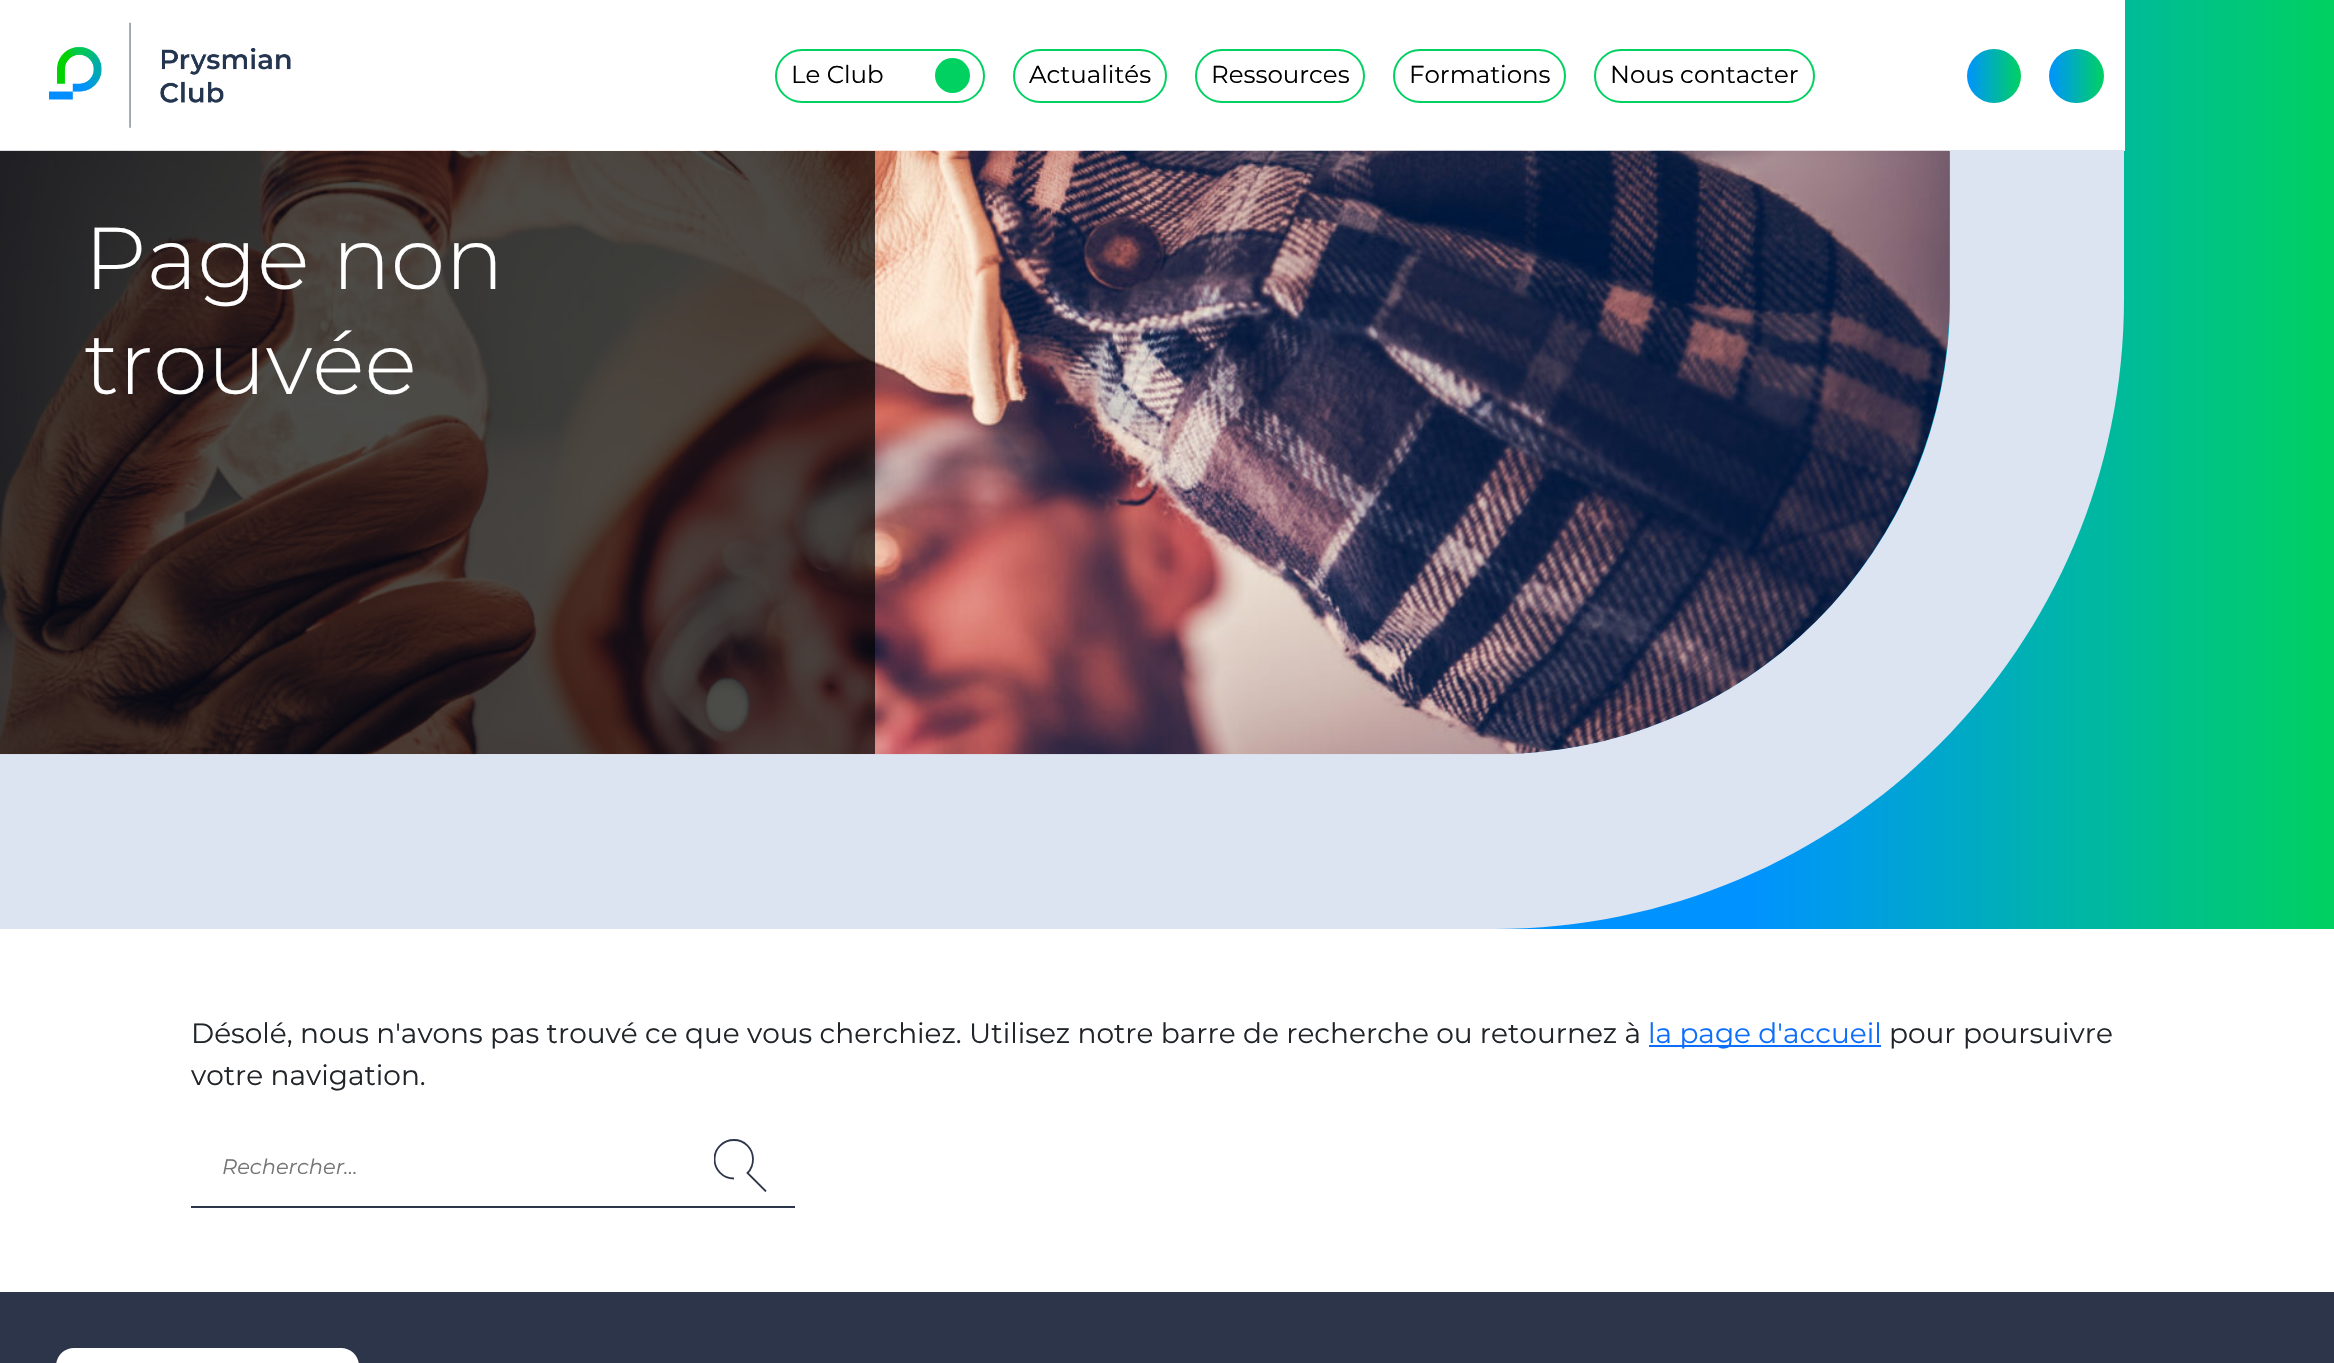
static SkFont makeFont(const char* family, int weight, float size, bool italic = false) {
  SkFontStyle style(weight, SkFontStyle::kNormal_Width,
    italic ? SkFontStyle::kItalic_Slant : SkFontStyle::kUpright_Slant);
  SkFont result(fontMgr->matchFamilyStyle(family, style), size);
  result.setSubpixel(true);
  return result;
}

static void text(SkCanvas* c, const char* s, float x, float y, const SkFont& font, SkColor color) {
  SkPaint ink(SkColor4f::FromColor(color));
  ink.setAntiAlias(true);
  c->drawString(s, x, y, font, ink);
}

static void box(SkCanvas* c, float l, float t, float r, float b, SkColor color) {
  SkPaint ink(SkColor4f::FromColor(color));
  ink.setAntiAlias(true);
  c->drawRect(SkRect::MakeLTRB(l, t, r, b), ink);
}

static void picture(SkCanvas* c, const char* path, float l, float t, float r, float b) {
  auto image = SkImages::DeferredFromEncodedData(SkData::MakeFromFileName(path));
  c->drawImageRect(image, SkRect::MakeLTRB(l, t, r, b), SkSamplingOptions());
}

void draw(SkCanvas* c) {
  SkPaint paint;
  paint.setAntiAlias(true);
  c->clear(0xffffffff);
  {
    const SkColor colors[] = {0xff0093ff, 0xff00d160};
    const float stops[] = {0.75f, 1};
    const SkPoint ends[] = {{0, 75}, {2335, 75}};
    paint.setShader(SkGradientShader::MakeLinear(ends, colors, stops, 2, SkTileMode::kClamp));
    paint.setAlpha(255);
  }
  c->drawRect(SkRect::MakeLTRB(2125, 0, 2334, 151), paint);
  picture(c, "img_01.png", 49, 22, 291, 128);
  paint.setStyle(SkPaint::kStroke_Style);
  paint.setStrokeWidth(2);
  paint.setShader(nullptr);
  paint.setColor(0xff00d160);
  c->drawRoundRect(SkRect::MakeLTRB(776, 50, 984, 102), 26, 26, paint);
  SkFont face1 = makeFont("Montserrat", 400, 24.5f);
  text(c, "Le Club", 791, 83, face1, 0xff000000);
  paint.setStyle(SkPaint::kFill_Style);
  c->drawCircle(952.5f, 75.5f, 17.5f, paint);
  paint.setStyle(SkPaint::kStroke_Style);
  c->drawRoundRect(SkRect::MakeLTRB(1014, 50, 1166, 102), 26, 26, paint);
  text(c, "Actualités", 1029, 83, face1, 0xff000000);
  c->drawRoundRect(SkRect::MakeLTRB(1196, 50, 1364, 102), 26, 26, paint);
  text(c, "Ressources", 1211, 83, face1, 0xff000000);
  c->drawRoundRect(SkRect::MakeLTRB(1394, 50, 1565, 102), 26, 26, paint);
  text(c, "Formations", 1409, 83, face1, 0xff000000);
  c->drawRoundRect(SkRect::MakeLTRB(1595, 50, 1814, 102), 26, 26, paint);
  text(c, "Nous contacter", 1610, 83, face1, 0xff000000);
  paint.setStyle(SkPaint::kFill_Style);
  {
    const SkColor colors[] = {0xff0093ff, 0xff00d160};
    const float stops[] = {0, 1};
    const SkPoint ends[] = {{1967, 76}, {2021, 76}};
    paint.setShader(SkGradientShader::MakeLinear(ends, colors, stops, 2, SkTileMode::kClamp));
    paint.setAlpha(255);
  }
  c->drawCircle(1994, 76, 27, paint);
  {
    const SkColor colors[] = {0xff0093ff, 0xff00d160};
    const float stops[] = {0, 1};
    const SkPoint ends[] = {{2049, 76}, {2104, 76}};
    paint.setShader(SkGradientShader::MakeLinear(ends, colors, stops, 2, SkTileMode::kClamp));
    paint.setAlpha(255);
  }
  c->drawRoundRect(SkRect::MakeLTRB(2049, 49, 2104, 103), 27, 27, paint);
  {
    const SkColor colors[] = {0xff0093ff, 0xff00d160};
    const float stops[] = {0.75f, 1};
    const SkPoint ends[] = {{0, 540}, {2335, 540}};
    paint.setShader(SkGradientShader::MakeLinear(ends, colors, stops, 2, SkTileMode::kClamp));
    paint.setAlpha(255);
  }
  c->drawRect(SkRect::MakeLTRB(1496, 151, 2334, 929), paint);
  paint.setShader(nullptr);
  paint.setColor(0xffdce4f2);
  c->drawPath(SkPathBuilder(SkPathFillType::kEvenOdd).moveTo(0, 150).lineTo(2124, 150).lineTo(2124, 299).cubicTo(2124, 647, 1842, 929, 1494, 929).lineTo(0, 929).close().moveTo(0, 150).lineTo(1950, 150).lineTo(1950, 299).cubicTo(1950, 551, 1746, 754, 1494, 754).lineTo(0, 754).close().detach(), paint);
  picture(c, "img_02.png", 0, 150, 1950, 755);
  box(c, 0, 151, 875, 754, 0xb3000000);
  SkFont face2 = makeFont("Montserrat", 300, 87.5f);
  text(c, "Page non", 84, 289, face2, 0xffffffff);
  text(c, "trouvée", 84, 394, face2, 0xffffffff);
  SkFont face3 = makeFont("Montserrat", 400, 28);
  text(c, "Désolé, nous n'avons pas trouvé ce que vous cherchiez. Utilisez notre barre de recherche ou retournez à", 191, 1043, face3, 0xff212529);
  box(c, 1649, 1045, 1881, 1047, 0xff0d6efd);
  text(c, "la page d'accueil", 1648, 1043, face3, 0xff0d6efd);
  text(c, "pour poursuivre", 1889, 1043, face3, 0xff212529);
  text(c, "votre navigation.", 191, 1085, face3, 0xff212529);
  box(c, 191, 1206, 795, 1208, 0xff2d354a);
  SkFont face4 = makeFont("Montserrat", 400, 21, true);
  text(c, "Rechercher…", 222, 1174, face4, 0xff757575);
  c->save();
  c->clipRect(SkRect::MakeLTRB(714, 1139, 767, 1192));
  paint.setStyle(SkPaint::kStroke_Style);
  paint.setStrokeWidth(1.8f);
  paint.setColor(0xff2d354a);
  c->drawPath(SkPathBuilder().moveTo(734, 1178.5f).cubicTo(723, 1178.5f, 714.5f, 1170, 714.5f, 1159).cubicTo(714.5f, 1148.5f, 723, 1140, 734, 1140).cubicTo(744.5f, 1140, 753, 1148.5f, 753, 1159).cubicTo(753, 1164.5f, 751, 1169.5f, 747.5f, 1173).lineTo(766, 1191.5f).detach(), paint);
  c->restore();
  box(c, 0, 1292, 2334, 1363, 0xff2d354a);
  paint.setStyle(SkPaint::kFill_Style);
  paint.setColor(0xffffffff);
  c->drawPath(SkPathBuilder().moveTo(74, 1348).lineTo(341, 1348).cubicTo(351, 1348, 359, 1356, 359, 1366).lineTo(359, 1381).lineTo(56, 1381).lineTo(56, 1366).cubicTo(56, 1356, 64, 1348, 74, 1348).close().detach(), paint);
}
